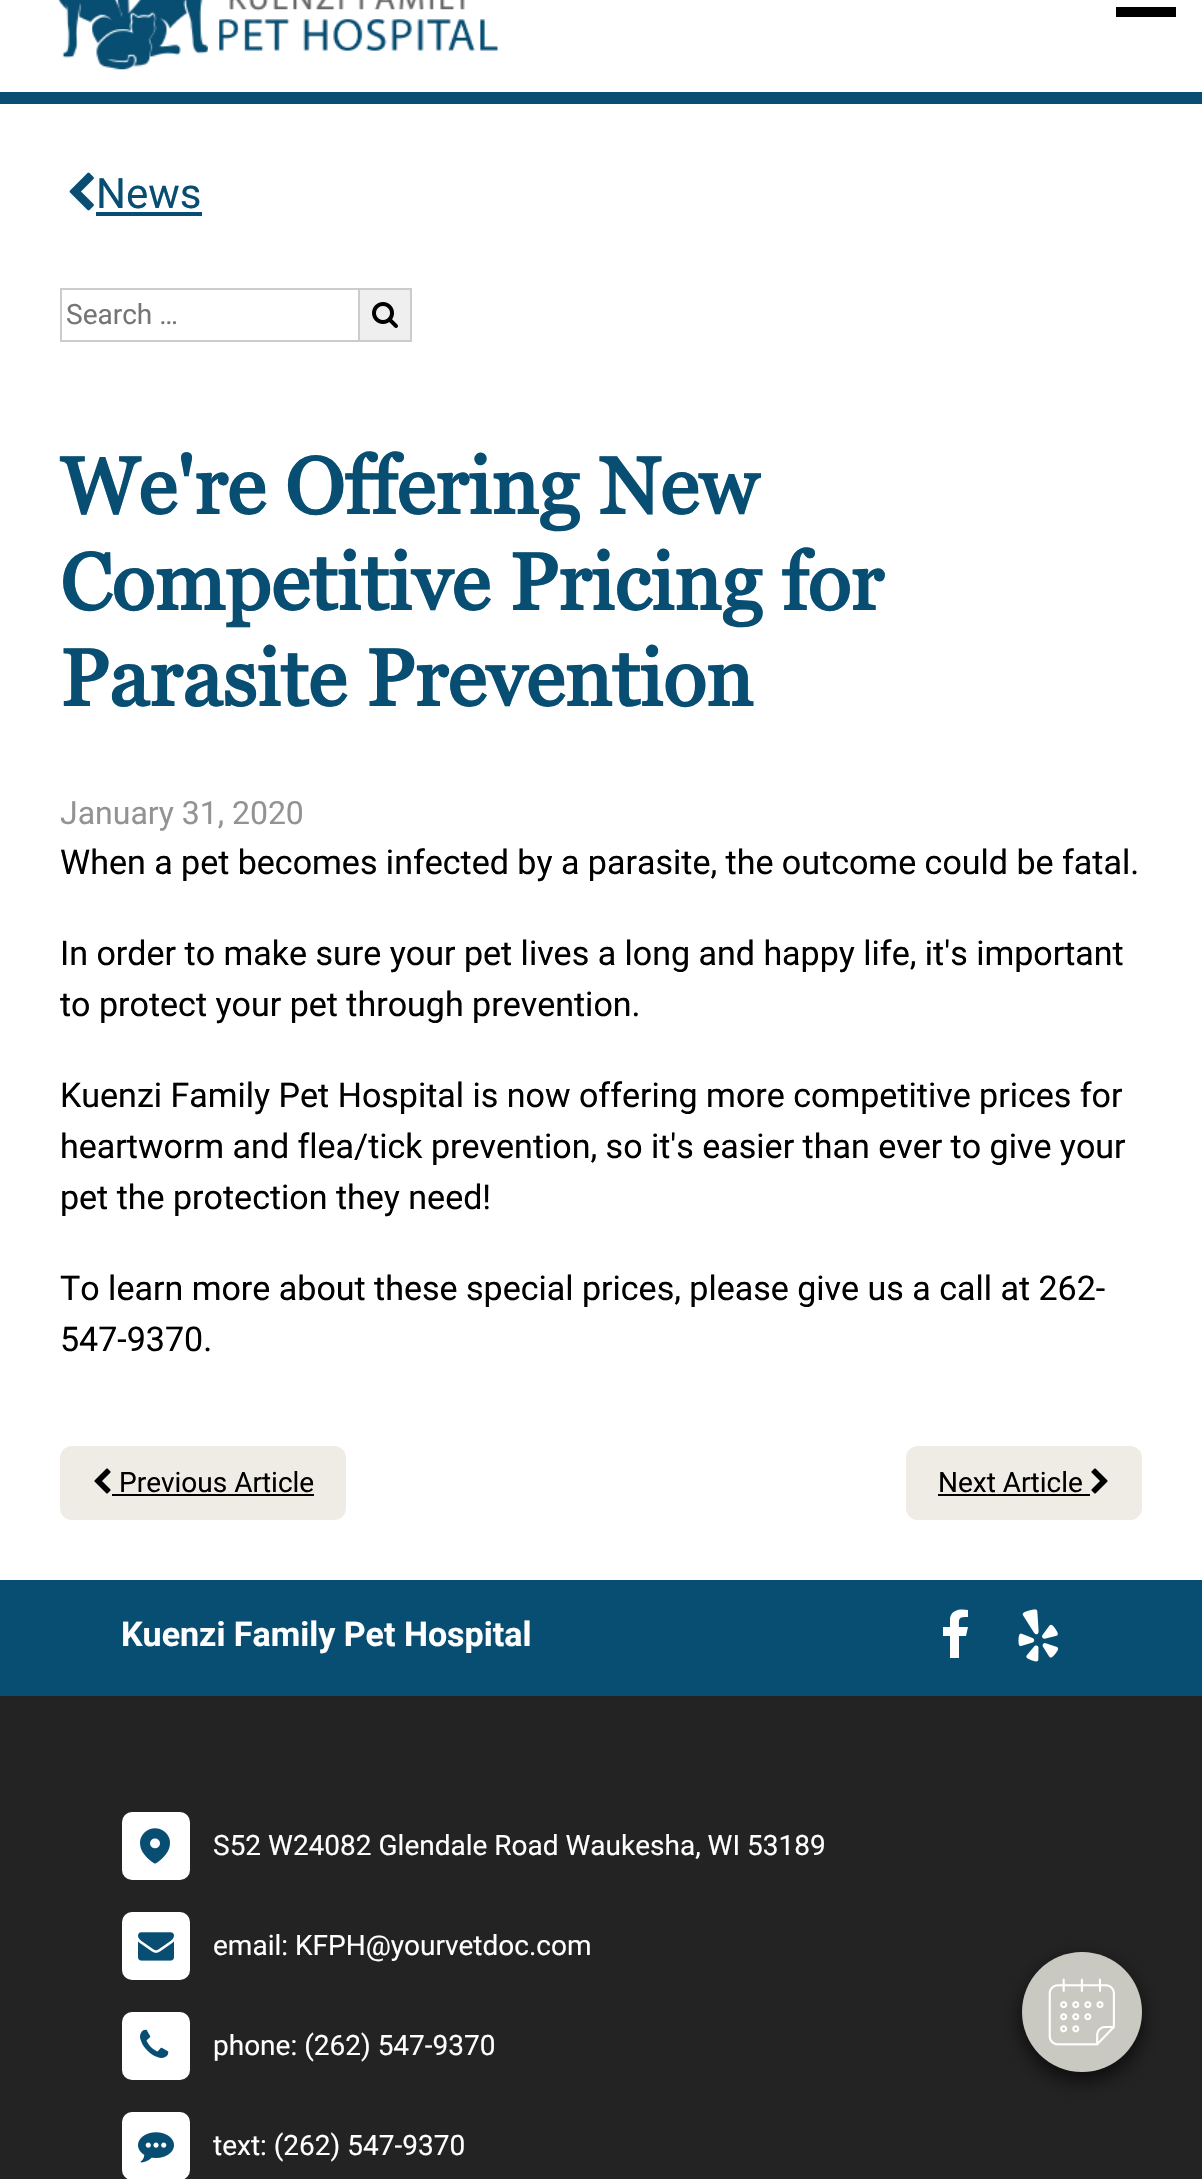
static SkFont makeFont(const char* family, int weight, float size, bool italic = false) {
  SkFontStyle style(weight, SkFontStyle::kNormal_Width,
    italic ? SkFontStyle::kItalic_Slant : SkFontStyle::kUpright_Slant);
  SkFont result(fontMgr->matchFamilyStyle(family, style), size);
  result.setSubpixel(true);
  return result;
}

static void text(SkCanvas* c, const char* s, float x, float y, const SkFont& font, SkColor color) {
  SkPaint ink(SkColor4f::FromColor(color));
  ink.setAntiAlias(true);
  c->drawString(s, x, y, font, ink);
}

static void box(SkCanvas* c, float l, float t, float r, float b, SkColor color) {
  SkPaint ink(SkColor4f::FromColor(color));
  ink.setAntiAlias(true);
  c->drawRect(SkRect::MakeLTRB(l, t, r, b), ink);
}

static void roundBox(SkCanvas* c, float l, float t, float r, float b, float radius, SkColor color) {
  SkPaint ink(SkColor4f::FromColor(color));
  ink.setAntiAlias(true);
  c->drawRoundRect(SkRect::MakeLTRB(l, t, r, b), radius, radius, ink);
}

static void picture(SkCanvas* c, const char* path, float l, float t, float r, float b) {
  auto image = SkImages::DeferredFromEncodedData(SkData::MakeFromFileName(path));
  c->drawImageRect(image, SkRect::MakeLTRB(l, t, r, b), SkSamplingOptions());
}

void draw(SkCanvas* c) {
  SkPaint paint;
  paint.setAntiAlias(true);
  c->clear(0xffffffff);
  box(c, 0, 92, 1202, 104, 0xff084e73);
  picture(c, "img_01.png", 58, 0, 498, 70);
  box(c, 1116, 7, 1176, 17, 0xff000000);
  picture(c, "img_02.png", 69, 172, 94, 211);
  SkFont face1 = makeFont("Roboto", 400, 42);
  text(c, "News", 96, 208, face1, 0xff084e73);
  box(c, 96, 212, 202, 216, 0xff084e73);
  paint.setStyle(SkPaint::kStroke_Style);
  paint.setStrokeWidth(2);
  paint.setColor(0xffcccccc);
  c->drawRect(SkRect::MakeLTRB(61, 289, 359, 341), paint);
  SkFont face2 = makeFont("Roboto", 400, 28);
  text(c, "Search …", 66, 324, face2, 0xff757575);
  box(c, 360, 290, 410, 340, 0xffefefef);
  box(c, 360, 288, 412, 290, 0xffcccccc);
  box(c, 410, 288, 412, 342, 0xffcccccc);
  box(c, 360, 340, 412, 342, 0xffcccccc);
  picture(c, "img_03.png", 372, 302, 398, 328);
  SkFont face3 = makeFont("Georgia", 700, 80);
  text(c, "We're Offering New", 60, 514, face3, 0xff084e73);
  text(c, "Competitive Pricing for", 60, 610, face3, 0xff084e73);
  text(c, "Parasite Prevention", 60, 706, face3, 0xff084e73);
  SkFont face4 = makeFont("Roboto", 400, 32);
  text(c, "January 31, 2020", 60, 824, face4, 0xff949393);
  SkFont face5 = makeFont("Roboto", 400, 34);
  text(c, "When a pet becomes infected by a parasite, the outcome could be fatal.", 60, 874, face5, 0xff000000);
  text(c, "In order to make sure your pet lives a long and happy life, it's important", 60, 965, face5, 0xff000000);
  text(c, "to protect your pet through prevention.", 60, 1016, face5, 0xff000000);
  text(c, "Kuenzi Family Pet Hospital is now offering more competitive prices for", 60, 1107, face5, 0xff000000);
  text(c, "heartworm and flea/tick prevention, so it's easier than ever to give your", 60, 1158, face5, 0xff000000);
  text(c, "pet the protection they need!", 60, 1209, face5, 0xff000000);
  text(c, "To learn more about these special prices, please give us a call at 262-", 60, 1300, face5, 0xff000000);
  text(c, "547-9370.", 60, 1351, face5, 0xff000000);
  roundBox(c, 60, 1446, 346, 1520, 12, 0xffeeece4);
  picture(c, "img_04.png", 94, 1468, 111, 1494);
  text(c, "Previous Article", 119, 1492, face2, 0xff000000);
  box(c, 112, 1494, 314, 1496, 0xff000000);
  roundBox(c, 906, 1446, 1142, 1520, 12, 0xffeeece4);
  text(c, "Next Article", 938, 1492, face2, 0xff000000);
  box(c, 938, 1494, 1090, 1496, 0xff000000);
  picture(c, "img_05.png", 1091, 1468, 1108, 1494);
  box(c, 0, 1580, 1202, 1696, 0xff084e73);
  SkFont face6 = makeFont("Roboto", 700, 34);
  text(c, "Kuenzi Family Pet Hospital", 121, 1646, face6, 0xffffffff);
  paint.setStyle(SkPaint::kFill_Style);
  paint.setColor(0xffffffff);
  c->drawPath(SkPathBuilder().moveTo(968, 1610).lineTo(968, 1617).cubicTo(958, 1617, 959, 1618, 959, 1627).lineTo(968, 1627).lineTo(966, 1636).lineTo(959, 1636).lineTo(959, 1658).lineTo(950, 1658).lineTo(950, 1636).lineTo(943, 1636).lineTo(943, 1627).lineTo(950, 1627).lineTo(950, 1618).cubicTo(952, 1609, 961, 1609, 968, 1610).close().detach(), paint);
  picture(c, "img_06.png", 1018, 1609, 1059, 1662);
  box(c, 0, 1696, 1202, 2179, 0xff232323);
  roundBox(c, 122, 1812, 190, 1880, 10, 0xffffffff);
  picture(c, "img_07.png", 140, 1828, 170, 1864);
  text(c, "S52 W24082 Glendale Road Waukesha, WI 53189", 213, 1855, face2, 0xffffffff);
  roundBox(c, 122, 1912, 190, 1980, 10, 0xffffffff);
  picture(c, "img_08.png", 138, 1932, 174, 1961);
  text(c, "email: KFPH@yourvetdoc.com", 213, 1955, face2, 0xffffffff);
  roundBox(c, 122, 2012, 190, 2080, 10, 0xffffffff);
  picture(c, "img_09.png", 140, 2029, 169, 2058);
  text(c, "phone: (262) 547-9370", 213, 2055, face2, 0xffffffff);
  roundBox(c, 122, 2112, 190, 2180, 10, 0xffffffff);
  picture(c, "img_10.png", 138, 2132, 174, 2163);
  text(c, "text: (262) 547-9370", 213, 2155, face2, 0xffffffff);
  paint.setColor(0xb3000000);
  paint.setMaskFilter(SkMaskFilter::MakeBlur(kNormal_SkBlurStyle, 10));
  c->drawRoundRect(SkRect::MakeLTRB(1022, 1960, 1142, 2080), 60, 60, paint);
  paint.setMaskFilter(nullptr);
  paint.setColor(0xffc9c9c1);
  c->drawCircle(1082, 2012, 60, paint);
  picture(c, "img_11.png", 1048, 1978, 1115, 2046);
}
